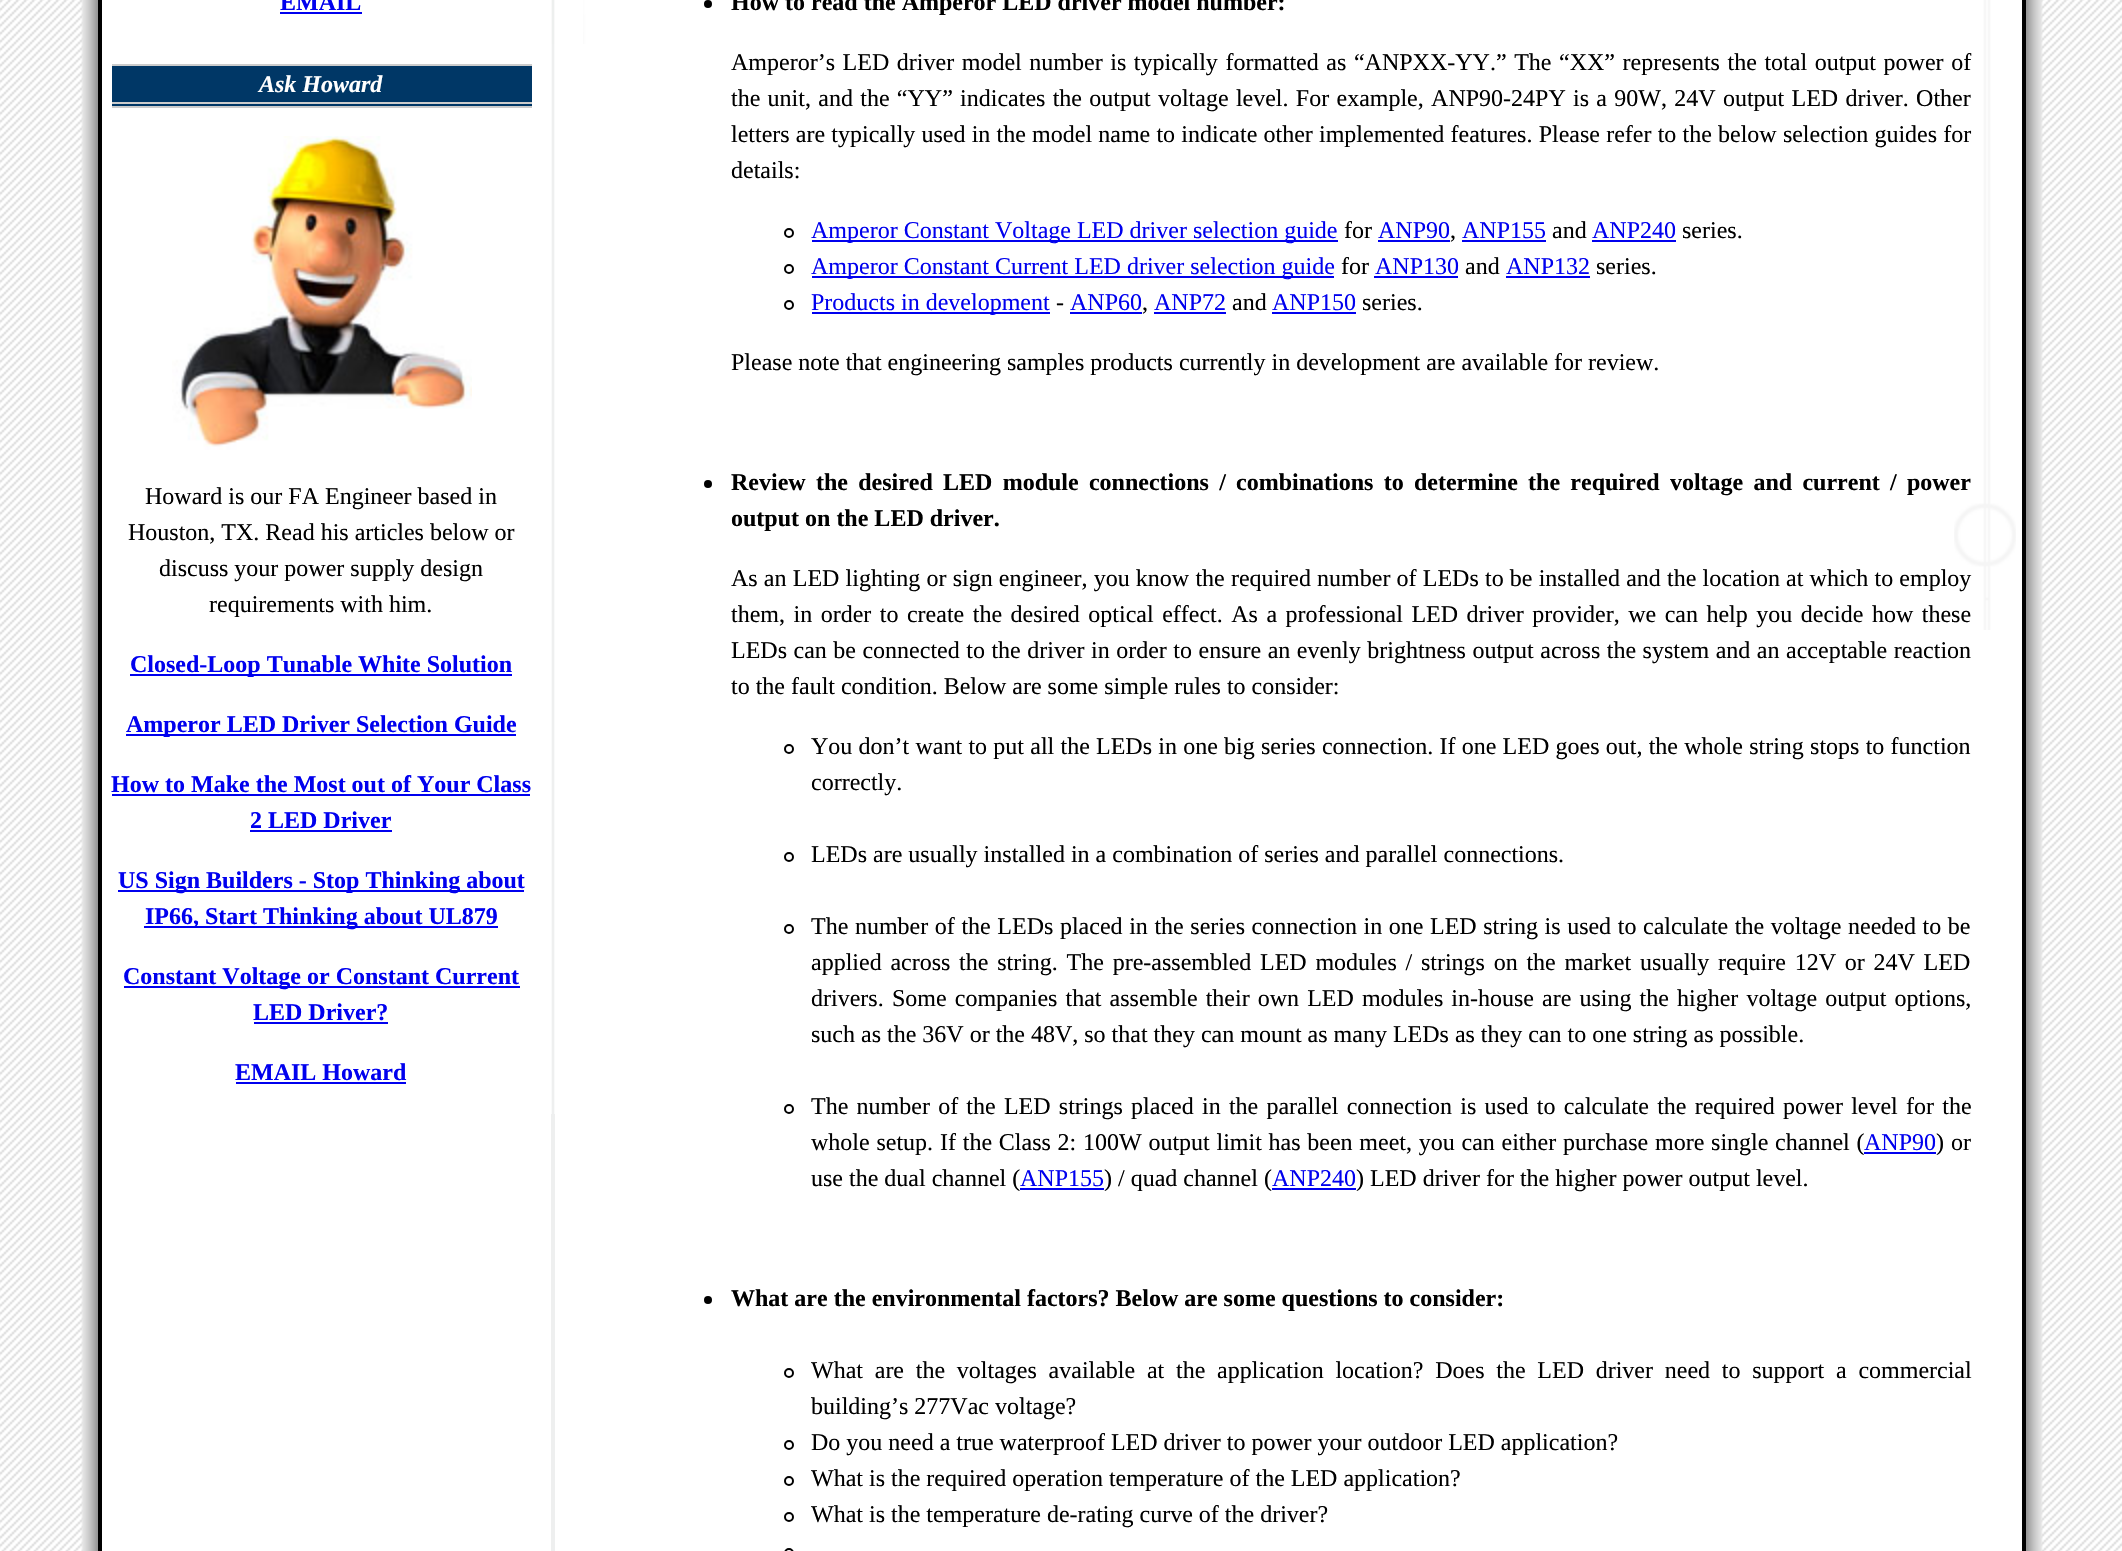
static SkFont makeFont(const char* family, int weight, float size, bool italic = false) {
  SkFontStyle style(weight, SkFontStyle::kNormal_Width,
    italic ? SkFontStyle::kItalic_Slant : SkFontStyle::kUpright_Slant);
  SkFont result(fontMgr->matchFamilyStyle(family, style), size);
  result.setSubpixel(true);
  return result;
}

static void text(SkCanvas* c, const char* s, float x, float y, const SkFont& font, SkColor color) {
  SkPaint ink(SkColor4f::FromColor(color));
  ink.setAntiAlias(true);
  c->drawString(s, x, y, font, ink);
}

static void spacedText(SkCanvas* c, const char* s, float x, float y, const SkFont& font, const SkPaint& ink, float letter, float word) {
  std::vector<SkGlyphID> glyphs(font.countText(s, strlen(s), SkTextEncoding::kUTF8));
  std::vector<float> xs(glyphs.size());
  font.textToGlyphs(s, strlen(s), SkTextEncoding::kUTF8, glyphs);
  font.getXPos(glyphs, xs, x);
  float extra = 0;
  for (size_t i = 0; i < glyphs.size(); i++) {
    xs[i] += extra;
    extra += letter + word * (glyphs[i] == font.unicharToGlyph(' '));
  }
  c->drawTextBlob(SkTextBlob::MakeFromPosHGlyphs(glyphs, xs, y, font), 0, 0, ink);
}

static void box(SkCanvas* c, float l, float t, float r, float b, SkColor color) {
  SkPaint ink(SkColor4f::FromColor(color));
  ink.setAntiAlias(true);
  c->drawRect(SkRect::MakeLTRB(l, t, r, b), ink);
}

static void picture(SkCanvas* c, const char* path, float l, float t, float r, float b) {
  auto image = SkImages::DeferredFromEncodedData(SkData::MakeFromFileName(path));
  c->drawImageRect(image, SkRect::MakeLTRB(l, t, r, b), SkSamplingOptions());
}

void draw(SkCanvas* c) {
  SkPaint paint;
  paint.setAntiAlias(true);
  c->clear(0xffffffff);
  picture(c, "img_01.png", 0, 0, 2122, 1551);
  picture(c, "img_02.png", 81, 0, 98, 1551);
  paint.setColor(0xffffffff);
  c->drawRect(SkRect::MakeLTRB(100, -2, 2024, 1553), paint);
  paint.setStyle(SkPaint::kStroke_Style);
  paint.setStrokeWidth(4);
  paint.setColor(0xff000000);
  c->drawRect(SkRect::MakeLTRB(100, -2, 2024, 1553), paint);
  box(c, 551, 1114, 555, 1551, 0xffeeefef);
  picture(c, "img_03.png", 583, 0, 589, 44);
  picture(c, "img_04.png", 102, 0, 583, 44);
  SkFont face1 = makeFont("Liberation Serif", 700, 24);
  text(c, "EMAIL", 280, 10, face1, 0xff0000ee);
  box(c, 280, 12, 362, 14, 0xff0000ee);
  picture(c, "img_05.png", 102, 44, 589, 1114);
  box(c, 112, 66, 532, 106, 0xff003766);
  box(c, 112, 64, 532, 66, 0xffcccccc);
  box(c, 112, 102, 532, 104, 0xffcccccc);
  box(c, 112, 106, 532, 108, 0xffcccccc);
  SkFont face2 = makeFont("Liberation Serif", 700, 24, true);
  text(c, "Ask Howard", 259, 92, face2, 0xffffffff);
  picture(c, "img_06.png", 172, 136, 472, 450);
  SkFont face3 = makeFont("Liberation Serif", 400, 24);
  text(c, "Howard is our FA Engineer based in", 145, 504, face3, 0xff000000);
  text(c, "Houston, TX. Read his articles below or", 128, 540, face3, 0xff000000);
  text(c, "discuss your power supply design", 159, 576, face3, 0xff000000);
  text(c, "requirements with him.", 209, 612, face3, 0xff000000);
  box(c, 130, 674, 512, 676, 0xff0000ee);
  text(c, "Closed-Loop Tunable White Solution", 130, 672, face1, 0xff0000ee);
  box(c, 126, 734, 516, 736, 0xff0000ee);
  text(c, "Amperor LED Driver Selection Guide", 126, 732, face1, 0xff0000ee);
  text(c, "How to Make the Most out of Your Class", 111, 792, face1, 0xff0000ee);
  box(c, 112, 794, 530, 796, 0xff0000ee);
  text(c, "2 LED Driver", 250, 828, face1, 0xff0000ee);
  box(c, 250, 830, 392, 832, 0xff0000ee);
  box(c, 118, 890, 524, 892, 0xff0000ee);
  text(c, "US Sign Builders - Stop Thinking about", 118, 888, face1, 0xff0000ee);
  box(c, 144, 926, 498, 928, 0xff0000ee);
  text(c, "IP66, Start Thinking about UL879", 145, 924, face1, 0xff0000ee);
  box(c, 124, 986, 520, 988, 0xff0000ee);
  text(c, "Constant Voltage or Constant Current", 123, 984, face1, 0xff0000ee);
  text(c, "LED Driver?", 253, 1020, face1, 0xff0000ee);
  box(c, 254, 1022, 388, 1024, 0xff0000ee);
  text(c, "EMAIL Howard", 235, 1080, face1, 0xff0000ee);
  box(c, 236, 1082, 406, 1084, 0xff0000ee);
  picture(c, "img_07.png", 1954, 0, 2016, 630);
  paint.setStyle(SkPaint::kFill_Style);
  c->drawCircle(708, 4, 4, paint);
  text(c, "How to read the Amperor LED driver model number:", 731, 10, face1, 0xff000000);
  spacedText(c, "Amperor’s LED driver model number is typically formatted as “ANPXX-YY.” The “XX” represents the total output power of", 731, 70, face3, paint, 0, 1.6f);
  spacedText(c, "the unit, and the “YY” indicates the output voltage level. For example, ANP90-24PY is a 90W, 24V output LED driver. Other", 731, 106, face3, paint, 0, 1.3f);
  spacedText(c, "letters are typically used in the model name to indicate other implemented features. Please refer to the below selection guides for", 731, 142, face3, paint, 0, 0.2f);
  text(c, "details:", 731, 178, face3, 0xff000000);
  paint.setStyle(SkPaint::kStroke_Style);
  paint.setStrokeWidth(2);
  c->drawCircle(789, 233, 4, paint);
  box(c, 812, 240, 1338, 242, 0xff0000ee);
  text(c, "Amperor Constant Voltage LED driver selection guide", 811, 238, face3, 0xff0000ee);
  text(c, "for", 1344, 238, face3, 0xff000000);
  text(c, "ANP90", 1378, 238, face3, 0xff0000ee);
  box(c, 1378, 240, 1450, 242, 0xff0000ee);
  text(c, ",", 1450, 238, face3, 0xff000000);
  text(c, "ANP155", 1462, 238, face3, 0xff0000ee);
  box(c, 1462, 240, 1546, 242, 0xff0000ee);
  text(c, "and", 1552, 238, face3, 0xff000000);
  text(c, "ANP240", 1592, 238, face3, 0xff0000ee);
  box(c, 1592, 240, 1676, 242, 0xff0000ee);
  text(c, "series.", 1682, 238, face3, 0xff000000);
  c->drawCircle(789, 269, 4, paint);
  box(c, 812, 276, 1334, 278, 0xff0000ee);
  text(c, "Amperor Constant Current LED driver selection guide", 811, 274, face3, 0xff0000ee);
  text(c, "for", 1341, 274, face3, 0xff000000);
  text(c, "ANP130", 1375, 274, face3, 0xff0000ee);
  box(c, 1374, 276, 1458, 278, 0xff0000ee);
  text(c, "and", 1465, 274, face3, 0xff000000);
  text(c, "ANP132", 1506, 274, face3, 0xff0000ee);
  box(c, 1506, 276, 1590, 278, 0xff0000ee);
  text(c, "series.", 1596, 274, face3, 0xff000000);
  c->drawCircle(789, 305, 4, paint);
  box(c, 812, 312, 1050, 314, 0xff0000ee);
  text(c, "Products in development", 811, 310, face3, 0xff0000ee);
  text(c, "-", 1056, 310, face3, 0xff000000);
  text(c, "ANP60", 1070, 310, face3, 0xff0000ee);
  box(c, 1070, 312, 1142, 314, 0xff0000ee);
  text(c, "ANP72", 1154, 310, face3, 0xff0000ee);
  box(c, 1154, 312, 1226, 314, 0xff0000ee);
  text(c, "and", 1232, 310, face3, 0xff000000);
  text(c, "ANP150", 1272, 310, face3, 0xff0000ee);
  box(c, 1272, 312, 1356, 314, 0xff0000ee);
  text(c, "series.", 1362, 310, face3, 0xff000000);
  text(c, ",", 1142, 310, face3, 0xff000000);
  text(c, "Please note that engineering samples products currently in development are available for review.", 731, 370, face3, 0xff000000);
  paint.setStyle(SkPaint::kFill_Style);
  c->drawCircle(708, 484, 4, paint);
  spacedText(c, "Review the desired LED module connections / combinations to determine the required voltage and current / power", 731, 490, face1, paint, 0, 4.25f);
  text(c, "output on the LED driver.", 731, 526, face1, 0xff000000);
  spacedText(c, "As an LED lighting or sign engineer, you know the required number of LEDs to be installed and the location at which to employ", 731, 586, face3, paint, 0, 0.2f);
  spacedText(c, "them, in order to create the desired optical effect. As a professional LED driver provider, we can help you decide how these", 731, 622, face3, paint, 0, 2.5f);
  spacedText(c, "LEDs can be connected to the driver in order to ensure an evenly brightness output across the system and an acceptable reaction", 731, 658, face3, paint, 0, 0.5f);
  text(c, "to the fault condition. Below are some simple rules to consider:", 731, 694, face3, 0xff000000);
  paint.setStyle(SkPaint::kStroke_Style);
  c->drawCircle(789, 749, 4, paint);
  paint.setStyle(SkPaint::kFill_Style);
  spacedText(c, "You don’t want to put all the LEDs in one big series connection. If one LED goes out, the whole string stops to function", 811, 754, face3, paint, 0, 0.25f);
  text(c, "correctly.", 811, 790, face3, 0xff000000);
  paint.setStyle(SkPaint::kStroke_Style);
  c->drawCircle(789, 857, 4, paint);
  text(c, "LEDs are usually installed in a combination of series and parallel connections.", 811, 862, face3, 0xff000000);
  c->drawCircle(789, 929, 4, paint);
  paint.setStyle(SkPaint::kFill_Style);
  spacedText(c, "The number of the LEDs placed in the series connection in one LED string is used to calculate the voltage needed to be", 811, 934, face3, paint, 0, 0.6f);
  spacedText(c, "applied across the string. The pre-assembled LED modules / strings on the market usually require 12V or 24V LED", 811, 970, face3, paint, 0, 2.75f);
  text(c, "drivers.", 811, 1006, face3, 0xff000000);
  spacedText(c, "Some companies that assemble their own LED modules in-house are using the higher voltage output options,", 892, 1006, face3, paint, 0, 2.1f);
  text(c, "such as the 36V or the 48V, so that they can mount as many LEDs as they can to one string as possible.", 811, 1042, face3, 0xff000000);
  paint.setStyle(SkPaint::kStroke_Style);
  c->drawCircle(789, 1109, 4, paint);
  paint.setStyle(SkPaint::kFill_Style);
  spacedText(c, "The number of the LED strings placed in the parallel connection is used to calculate the required power level for the", 811, 1114, face3, paint, 0, 2.25f);
  spacedText(c, "whole setup.", 811, 1150, face3, paint, 0, 0.75f);
  spacedText(c, "If the Class 2: 100W output limit has been meet, you can either purchase more single channel (", 940, 1150, face3, paint, 0, 0.75f);
  text(c, "ANP90", 1864, 1150, face3, 0xff0000ee);
  box(c, 1864, 1152, 1936, 1154, 0xff0000ee);
  spacedText(c, ") or", 1936, 1150, face3, paint, 0, 1);
  text(c, "use the dual channel (", 811, 1186, face3, 0xff000000);
  text(c, "ANP155", 1020, 1186, face3, 0xff0000ee);
  box(c, 1020, 1188, 1104, 1190, 0xff0000ee);
  text(c, ") / quad channel (", 1104, 1186, face3, 0xff000000);
  text(c, "ANP240", 1272, 1186, face3, 0xff0000ee);
  box(c, 1272, 1188, 1356, 1190, 0xff0000ee);
  text(c, ") LED driver for the higher power output level.", 1356, 1186, face3, 0xff000000);
  c->drawCircle(708, 1300, 4, paint);
  text(c, "What are the environmental factors? Below are some questions to consider:", 731, 1306, face1, 0xff000000);
  paint.setStyle(SkPaint::kStroke_Style);
  c->drawCircle(789, 1373, 4, paint);
  paint.setStyle(SkPaint::kFill_Style);
  spacedText(c, "What are the voltages available at the application location? Does the LED driver need to support a commercial", 811, 1378, face3, paint, 0, 5.75f);
  text(c, "building’s 277Vac voltage?", 811, 1414, face3, 0xff000000);
  paint.setStyle(SkPaint::kStroke_Style);
  c->drawCircle(789, 1445, 4, paint);
  text(c, "Do you need a true waterproof LED driver to power your outdoor LED application?", 811, 1450, face3, 0xff000000);
  c->drawCircle(789, 1481, 4, paint);
  text(c, "What is the required operation temperature of the LED application?", 811, 1486, face3, 0xff000000);
  c->drawCircle(789, 1517, 4, paint);
  text(c, "What is the temperature de-rating curve of the driver?", 811, 1522, face3, 0xff000000);
  c->drawCircle(789, 1553, 4, paint);
  picture(c, "img_08.png", 2026, 0, 2043, 1551);
}
